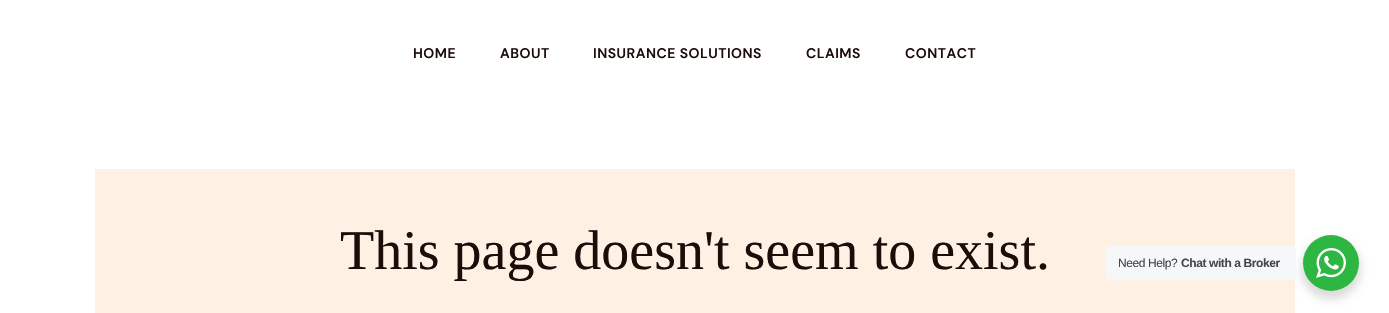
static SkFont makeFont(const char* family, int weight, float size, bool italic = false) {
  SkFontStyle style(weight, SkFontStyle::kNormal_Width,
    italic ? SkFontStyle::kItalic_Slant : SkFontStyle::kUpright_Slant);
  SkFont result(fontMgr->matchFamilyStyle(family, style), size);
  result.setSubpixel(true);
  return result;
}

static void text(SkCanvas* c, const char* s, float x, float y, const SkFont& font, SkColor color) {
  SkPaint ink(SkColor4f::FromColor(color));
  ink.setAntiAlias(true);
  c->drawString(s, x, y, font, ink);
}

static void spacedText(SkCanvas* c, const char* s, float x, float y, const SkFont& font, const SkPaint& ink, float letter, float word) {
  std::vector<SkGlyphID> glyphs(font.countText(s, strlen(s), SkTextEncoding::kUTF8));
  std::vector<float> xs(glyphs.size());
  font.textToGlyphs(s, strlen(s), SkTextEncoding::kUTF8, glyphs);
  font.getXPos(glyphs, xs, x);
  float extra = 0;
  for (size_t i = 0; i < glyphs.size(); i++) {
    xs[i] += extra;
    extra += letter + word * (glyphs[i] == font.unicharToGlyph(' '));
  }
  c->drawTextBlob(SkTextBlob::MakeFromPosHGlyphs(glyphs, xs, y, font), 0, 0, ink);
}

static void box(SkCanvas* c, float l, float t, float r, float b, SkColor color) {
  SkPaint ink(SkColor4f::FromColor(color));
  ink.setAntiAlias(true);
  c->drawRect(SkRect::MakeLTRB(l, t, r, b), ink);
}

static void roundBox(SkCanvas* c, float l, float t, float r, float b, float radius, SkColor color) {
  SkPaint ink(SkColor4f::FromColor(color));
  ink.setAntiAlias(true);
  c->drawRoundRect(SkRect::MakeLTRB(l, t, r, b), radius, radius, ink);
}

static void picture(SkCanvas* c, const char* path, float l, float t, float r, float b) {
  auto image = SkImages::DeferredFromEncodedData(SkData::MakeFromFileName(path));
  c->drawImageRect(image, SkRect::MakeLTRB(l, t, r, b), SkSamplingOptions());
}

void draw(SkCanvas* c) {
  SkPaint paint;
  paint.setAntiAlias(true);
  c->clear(0xffffffff);
  SkFont face1 = makeFont("DM Sans", 600, 14);
  paint.setColor(0xff1c0d0a);
  spacedText(c, "HOME", 413, 58, face1, paint, 0.5f, 0);
  spacedText(c, "ABOUT", 500, 58, face1, paint, 0.5f, 0);
  spacedText(c, "INSURANCE SOLUTIONS", 593, 58, face1, paint, 0.5f, 0);
  spacedText(c, "CLAIMS", 806, 58, face1, paint, 0.5f, 0);
  spacedText(c, "CONTACT", 905, 58, face1, paint, 0.5f, 0);
  box(c, 95, 169, 1295, 313, 0xfffef1e4);
  SkFont face2 = makeFont("Liberation Serif", 400, 56);
  text(c, "This page doesn't seem to exist.", 340, 269, face2, 0xff1c0d0a);
  paint.setColor(0x24000000);
  paint.setMaskFilter(SkMaskFilter::MakeBlur(kNormal_SkBlurStyle, 4));
  c->drawRoundRect(SkRect::MakeLTRB(1301, 239, 1361, 299), 30, 30, paint);
  paint.setMaskFilter(nullptr);
  roundBox(c, 1106, 246, 1296, 280, 4, 0xfff5f7f9);
  SkFont face3 = makeFont("Liberation Sans", 400, 12);
  paint.setColor(0xff43474e);
  spacedText(c, "Need Help?", 1118, 267, face3, paint, -0.4f, 0);
  SkFont face4 = makeFont("Liberation Sans", 700, 12);
  spacedText(c, "Chat with a Broker", 1181, 267, face4, paint, -0.4f, 0);
  paint.setColor(0xff2db742);
  c->drawCircle(1331, 263, 28, paint);
  picture(c, "img_01.png", 1316, 248, 1346, 278);
}
